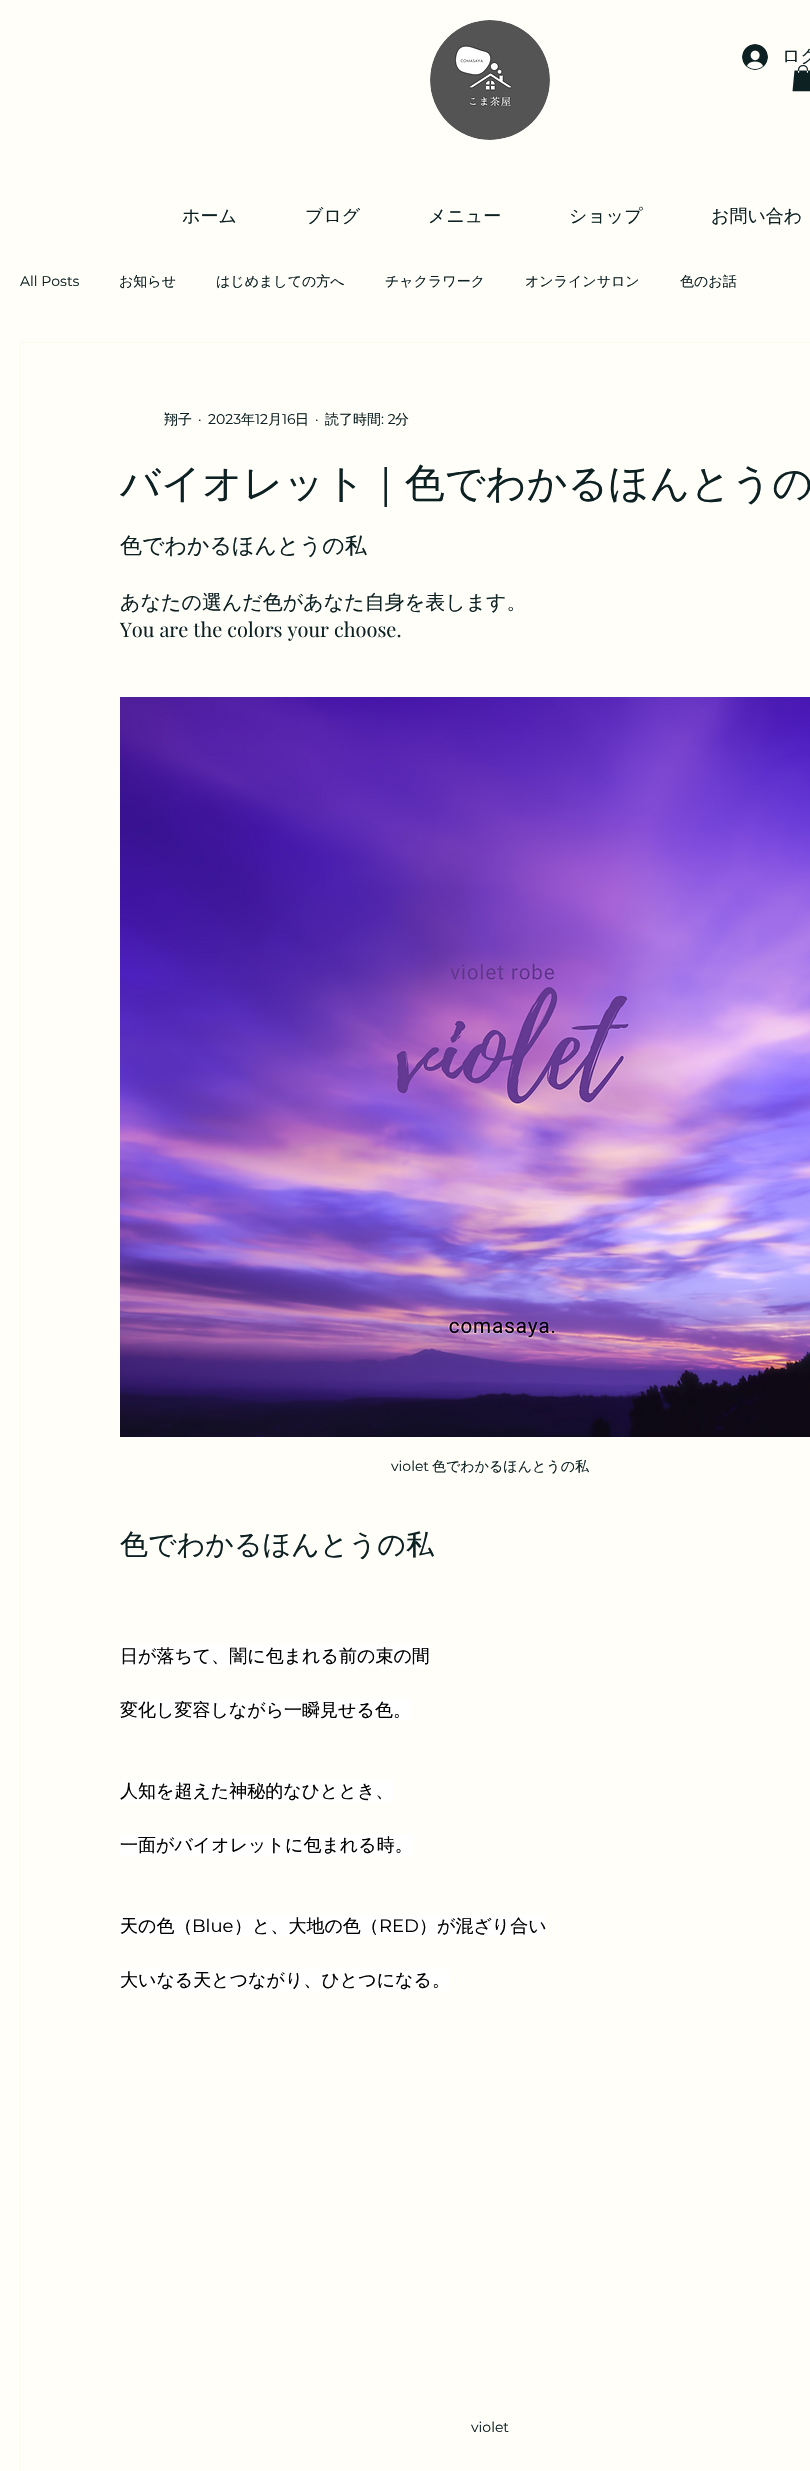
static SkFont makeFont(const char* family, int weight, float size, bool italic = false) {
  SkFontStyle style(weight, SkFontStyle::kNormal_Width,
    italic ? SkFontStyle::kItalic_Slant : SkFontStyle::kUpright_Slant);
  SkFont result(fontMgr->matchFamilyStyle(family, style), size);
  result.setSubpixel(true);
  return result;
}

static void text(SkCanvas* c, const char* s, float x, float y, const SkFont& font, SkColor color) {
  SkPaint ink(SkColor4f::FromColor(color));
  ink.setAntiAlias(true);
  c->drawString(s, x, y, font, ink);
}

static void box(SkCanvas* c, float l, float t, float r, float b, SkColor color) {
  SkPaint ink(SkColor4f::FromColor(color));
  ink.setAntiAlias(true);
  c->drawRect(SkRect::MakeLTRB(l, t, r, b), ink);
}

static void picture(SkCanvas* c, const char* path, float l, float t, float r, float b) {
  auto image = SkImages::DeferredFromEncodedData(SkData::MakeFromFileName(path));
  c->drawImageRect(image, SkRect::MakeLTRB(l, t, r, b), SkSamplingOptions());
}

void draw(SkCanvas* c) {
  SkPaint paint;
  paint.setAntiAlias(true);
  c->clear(0xfffffef8);
  paint.setColor(0xffffffff);
  c->drawCircle(490, 80, 60, paint);
  picture(c, "img_01.png", 430, 20, 550, 140);
  picture(c, "img_02.png", 742, 44, 768, 70);
  SkFont face1 = makeFont("WenQuanYi Zen Hei", 500, 18);
  text(c, "ログ", 782, 62, face1, 0xff0d2123);
  picture(c, "img_03.png", 792, 65, 810, 92);
  text(c, "ホーム", 182, 222, face1, 0xff0d2123);
  text(c, "ブログ", 305, 222, face1, 0xff0d2123);
  text(c, "メニュー", 428, 222, face1, 0xff0d2123);
  text(c, "ショップ", 569, 222, face1, 0xff0d2123);
  text(c, "お問い合わ", 711, 222, face1, 0xff0d2123);
  SkFont face2 = makeFont("Montserrat", 400, 14);
  text(c, "All Posts", 20, 286, face2, 0xff0d2123);
  SkFont face3 = makeFont("WenQuanYi Zen Hei", 500, 14);
  text(c, "お知らせ", 119, 286, face3, 0xff0d2123);
  text(c, "はじめましての方へ", 216, 286, face3, 0xff0d2123);
  text(c, "チャクラワーク", 385, 286, face3, 0xff0d2123);
  text(c, "オンラインサロン", 525, 286, face3, 0xff0d2123);
  text(c, "色のお話", 680, 286, face3, 0xff0d2123);
  paint.setStyle(SkPaint::kStroke_Style);
  paint.setStrokeWidth(1);
  paint.setColor(0xfffcfaee);
  c->drawRect(SkRect::MakeLTRB(20.5f, 342.5f, 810.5f, 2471.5f), paint);
  text(c, "翔子", 164, 424, face3, 0xff0d2123);
  text(c, "·", 198, 424, face2, 0xff0d2123);
  text(c, "2023", 208, 424, face2, 0xff0d2123);
  text(c, "年", 241, 424, face3, 0xff0d2123);
  text(c, "12", 255, 424, face2, 0xff0d2123);
  text(c, "月", 268, 424, face3, 0xff0d2123);
  text(c, "16", 282, 424, face2, 0xff0d2123);
  text(c, "日", 295, 424, face3, 0xff0d2123);
  text(c, "·", 315, 424, face2, 0xff0d2123);
  text(c, "読了時間", 325, 424, face3, 0xff0d2123);
  text(c, ": 2", 381, 424, face2, 0xff0d2123);
  text(c, "分", 395, 424, face3, 0xff0d2123);
  SkFont face4 = makeFont("WenQuanYi Zen Hei", 500, 40);
  text(c, "バイオレット｜色でわかるほんとうの", 120, 497, face4, 0xff0d2123);
  SkFont face5 = makeFont("WenQuanYi Zen Hei", 500, 22);
  text(c, "色でわかるほんとうの私", 120, 553, face5, 0xff0d2123);
  SkFont face6 = makeFont("WenQuanYi Zen Hei", 500, 20);
  text(c, "あなたの選んだ色があなた自身を表します。", 120, 609, face6, 0xff0d2123);
  SkFont face7 = makeFont("Playfair Display", 400, 20);
  text(c, "You are the colors your choose.", 120, 637, face7, 0xff0d2123);
  picture(c, "img_04.png", 120, 697, 810, 1437);
  text(c, "violet", 391, 1471, face2, 0xff0d2123);
  text(c, "色でわかるほんとうの私", 432, 1471, face3, 0xff0d2123);
  SkFont face8 = makeFont("WenQuanYi Zen Hei", 500, 28);
  text(c, "色でわかるほんとうの私", 120, 1554, face8, 0xff0d2123);
  box(c, 120, 1645, 430, 1667, 0xffffffff);
  text(c, "日が落ちて、闇に包まれる前の束の間", 120, 1662, face1, 0xff000000);
  box(c, 120, 1699, 411, 1721, 0xffffffff);
  text(c, "変化し変容しながら一瞬見せる色。", 120, 1716, face1, 0xff000000);
  box(c, 120, 1780, 393, 1802, 0xffffffff);
  text(c, "人知を超えた神秘的なひととき、", 120, 1797, face1, 0xff000000);
  box(c, 120, 1834, 413, 1856, 0xffffffff);
  text(c, "一面がバイオレットに包まれる時。", 120, 1851, face1, 0xff000000);
  box(c, 120, 1915, 546, 1937, 0xffffffff);
  text(c, "天の色（", 120, 1932, face1, 0xff000000);
  SkFont face9 = makeFont("Montserrat", 400, 18);
  text(c, "Blue", 192, 1932, face9, 0xff000000);
  text(c, "）と、大地の色（", 234, 1932, face1, 0xff000000);
  text(c, "RED", 379, 1932, face9, 0xff000000);
  text(c, "）が混ざり合い", 419, 1932, face1, 0xff000000);
  box(c, 120, 1969, 450, 1991, 0xffffffff);
  text(c, "大いなる天とつながり、ひとつになる。", 120, 1986, face1, 0xff000000);
  text(c, "violet", 471, 2432, face2, 0xff0d2123);
}
